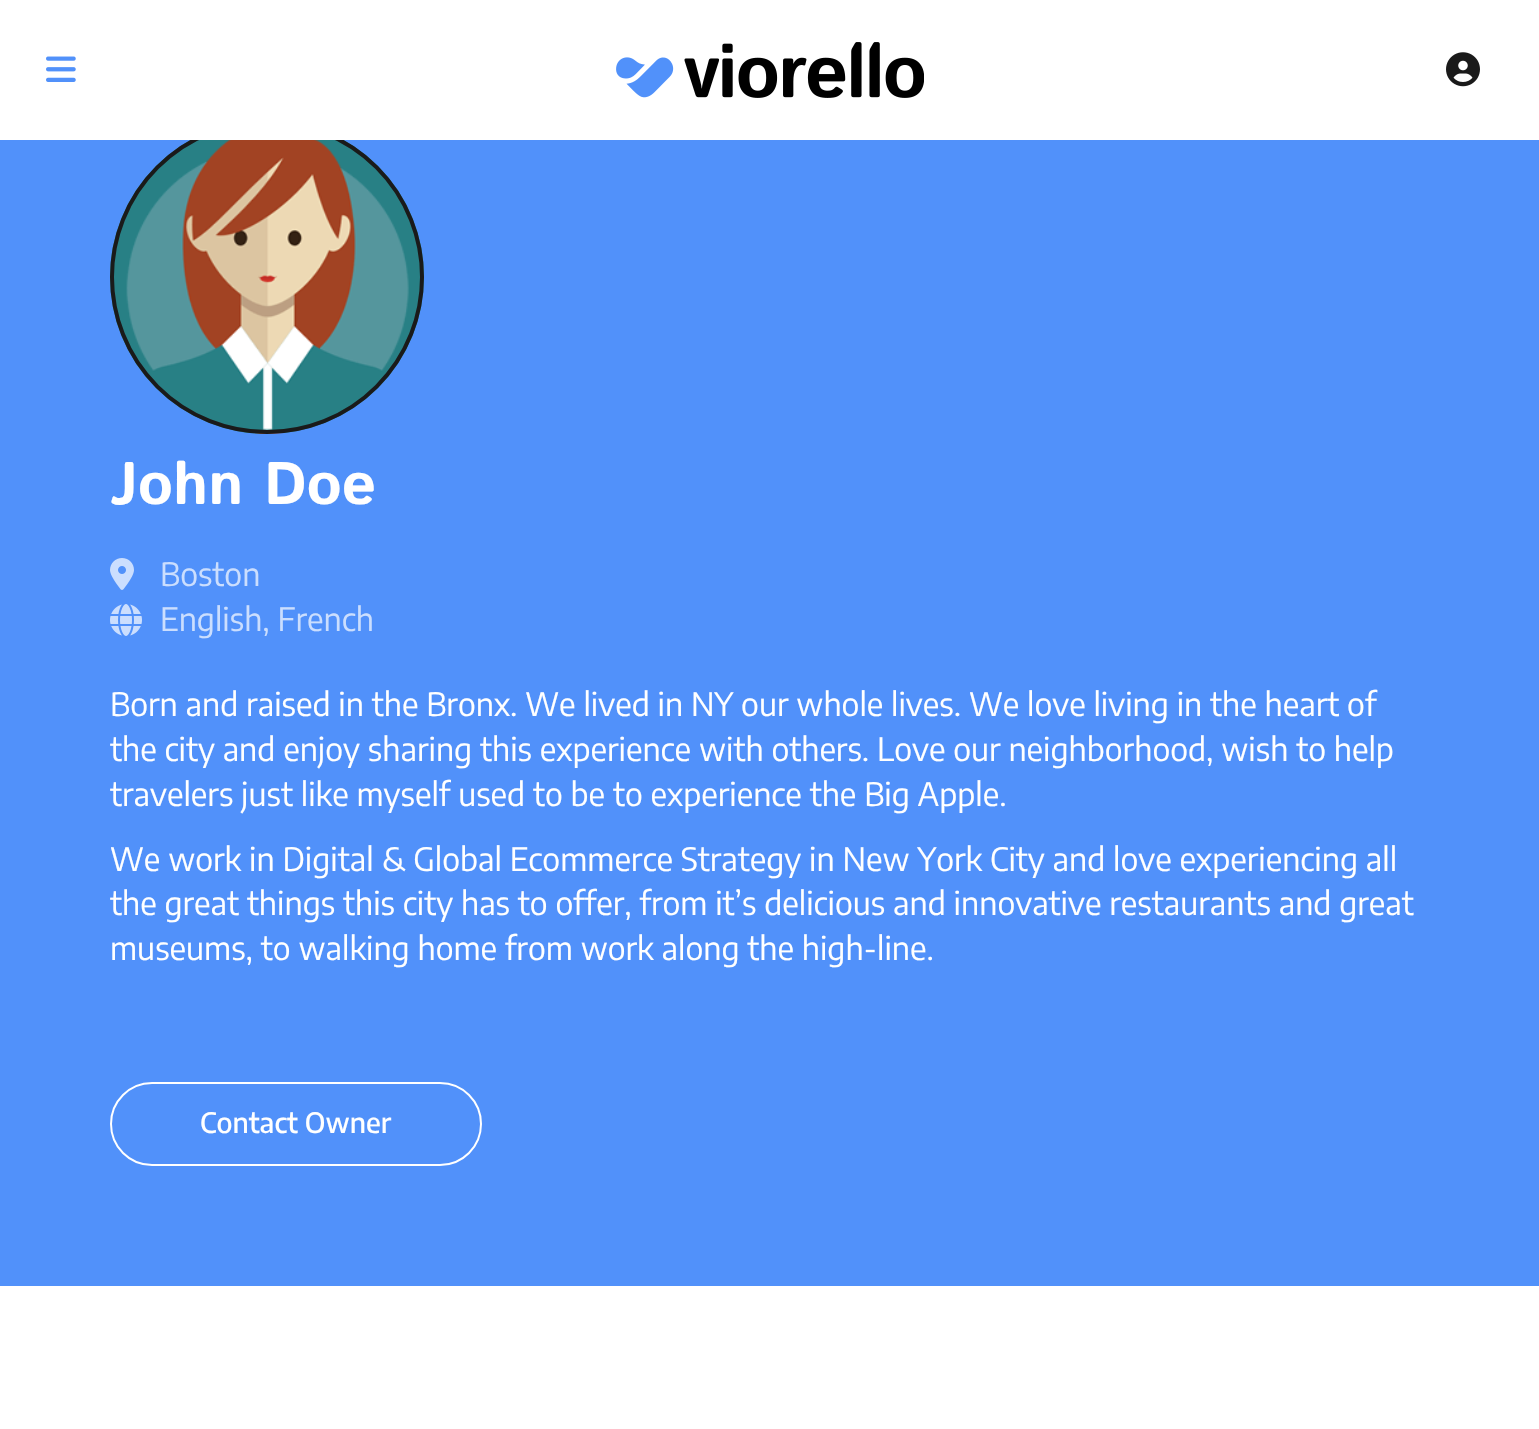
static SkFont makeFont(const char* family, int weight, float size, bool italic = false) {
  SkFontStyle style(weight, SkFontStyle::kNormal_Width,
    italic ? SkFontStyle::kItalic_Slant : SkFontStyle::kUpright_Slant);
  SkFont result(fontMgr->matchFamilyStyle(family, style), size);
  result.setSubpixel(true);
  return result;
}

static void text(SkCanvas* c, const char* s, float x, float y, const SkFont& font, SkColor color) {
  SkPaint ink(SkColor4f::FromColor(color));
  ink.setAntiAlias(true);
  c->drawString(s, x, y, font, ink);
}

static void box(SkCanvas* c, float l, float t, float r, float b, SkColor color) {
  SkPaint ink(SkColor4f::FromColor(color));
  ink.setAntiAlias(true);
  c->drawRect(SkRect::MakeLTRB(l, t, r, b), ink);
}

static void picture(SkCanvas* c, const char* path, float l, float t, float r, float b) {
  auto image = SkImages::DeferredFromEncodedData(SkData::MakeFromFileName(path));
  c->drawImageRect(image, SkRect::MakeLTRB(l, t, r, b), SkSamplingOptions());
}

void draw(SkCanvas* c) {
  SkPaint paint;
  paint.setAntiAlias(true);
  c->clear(0xffffffff);
  box(c, 0, 140, 1539, 1286, 0xff5191fa);
  picture(c, "img_04.png", 110, 140, 424, 434);
  paint.setStyle(SkPaint::kStroke_Style);
  paint.setStrokeWidth(4);
  paint.setColor(0xff1a1a1a);
  c->drawCircle(267, 277, 155, paint);
  box(c, 190, 120, 344, 140, 0xffffffff);
  picture(c, "img_01.png", 46, 56, 76, 82);
  picture(c, "img_02.png", 616, 42, 924, 98);
  picture(c, "img_03.png", 1446, 52, 1480, 87);
  SkFont face1 = makeFont("Istok Web", 700, 60);
  text(c, "John Doe", 110, 504, face1, 0xffffffff);
  picture(c, "img_05.png", 110, 558, 134, 590);
  SkFont face2 = makeFont("Encode Sans Condensed", 400, 32);
  text(c, "Boston", 160, 586, face2, 0xffcbdefe);
  picture(c, "img_06.png", 110, 604, 142, 636);
  text(c, "English, French", 160, 631, face2, 0xffcbdefe);
  text(c, "Born and raised in the Bronx. We lived in NY our whole lives. We love living in the heart of", 110, 716, face2, 0xffffffff);
  text(c, "the city and enjoy sharing this experience with others. Love our neighborhood, wish to help", 110, 761, face2, 0xffffffff);
  text(c, "travelers just like myself used to be to experience the Big Apple.", 110, 806, face2, 0xffffffff);
  text(c, "We work in Digital & Global Ecommerce Strategy in New York City and love experiencing all", 110, 871, face2, 0xffffffff);
  text(c, "the great things this city has to offer, from it’s delicious and innovative restaurants and great", 110, 915, face2, 0xffffffff);
  text(c, "museums, to walking home from work along the high-line.", 110, 960, face2, 0xffffffff);
  paint.setStrokeWidth(2);
  paint.setColor(0xffffffff);
  c->drawRoundRect(SkRect::MakeLTRB(111, 1083, 481, 1165), 41, 41, paint);
  SkFont face3 = makeFont("Encode Sans Condensed", 500, 28);
  text(c, "Contact Owner", 200, 1133, face3, 0xffffffff);
}
